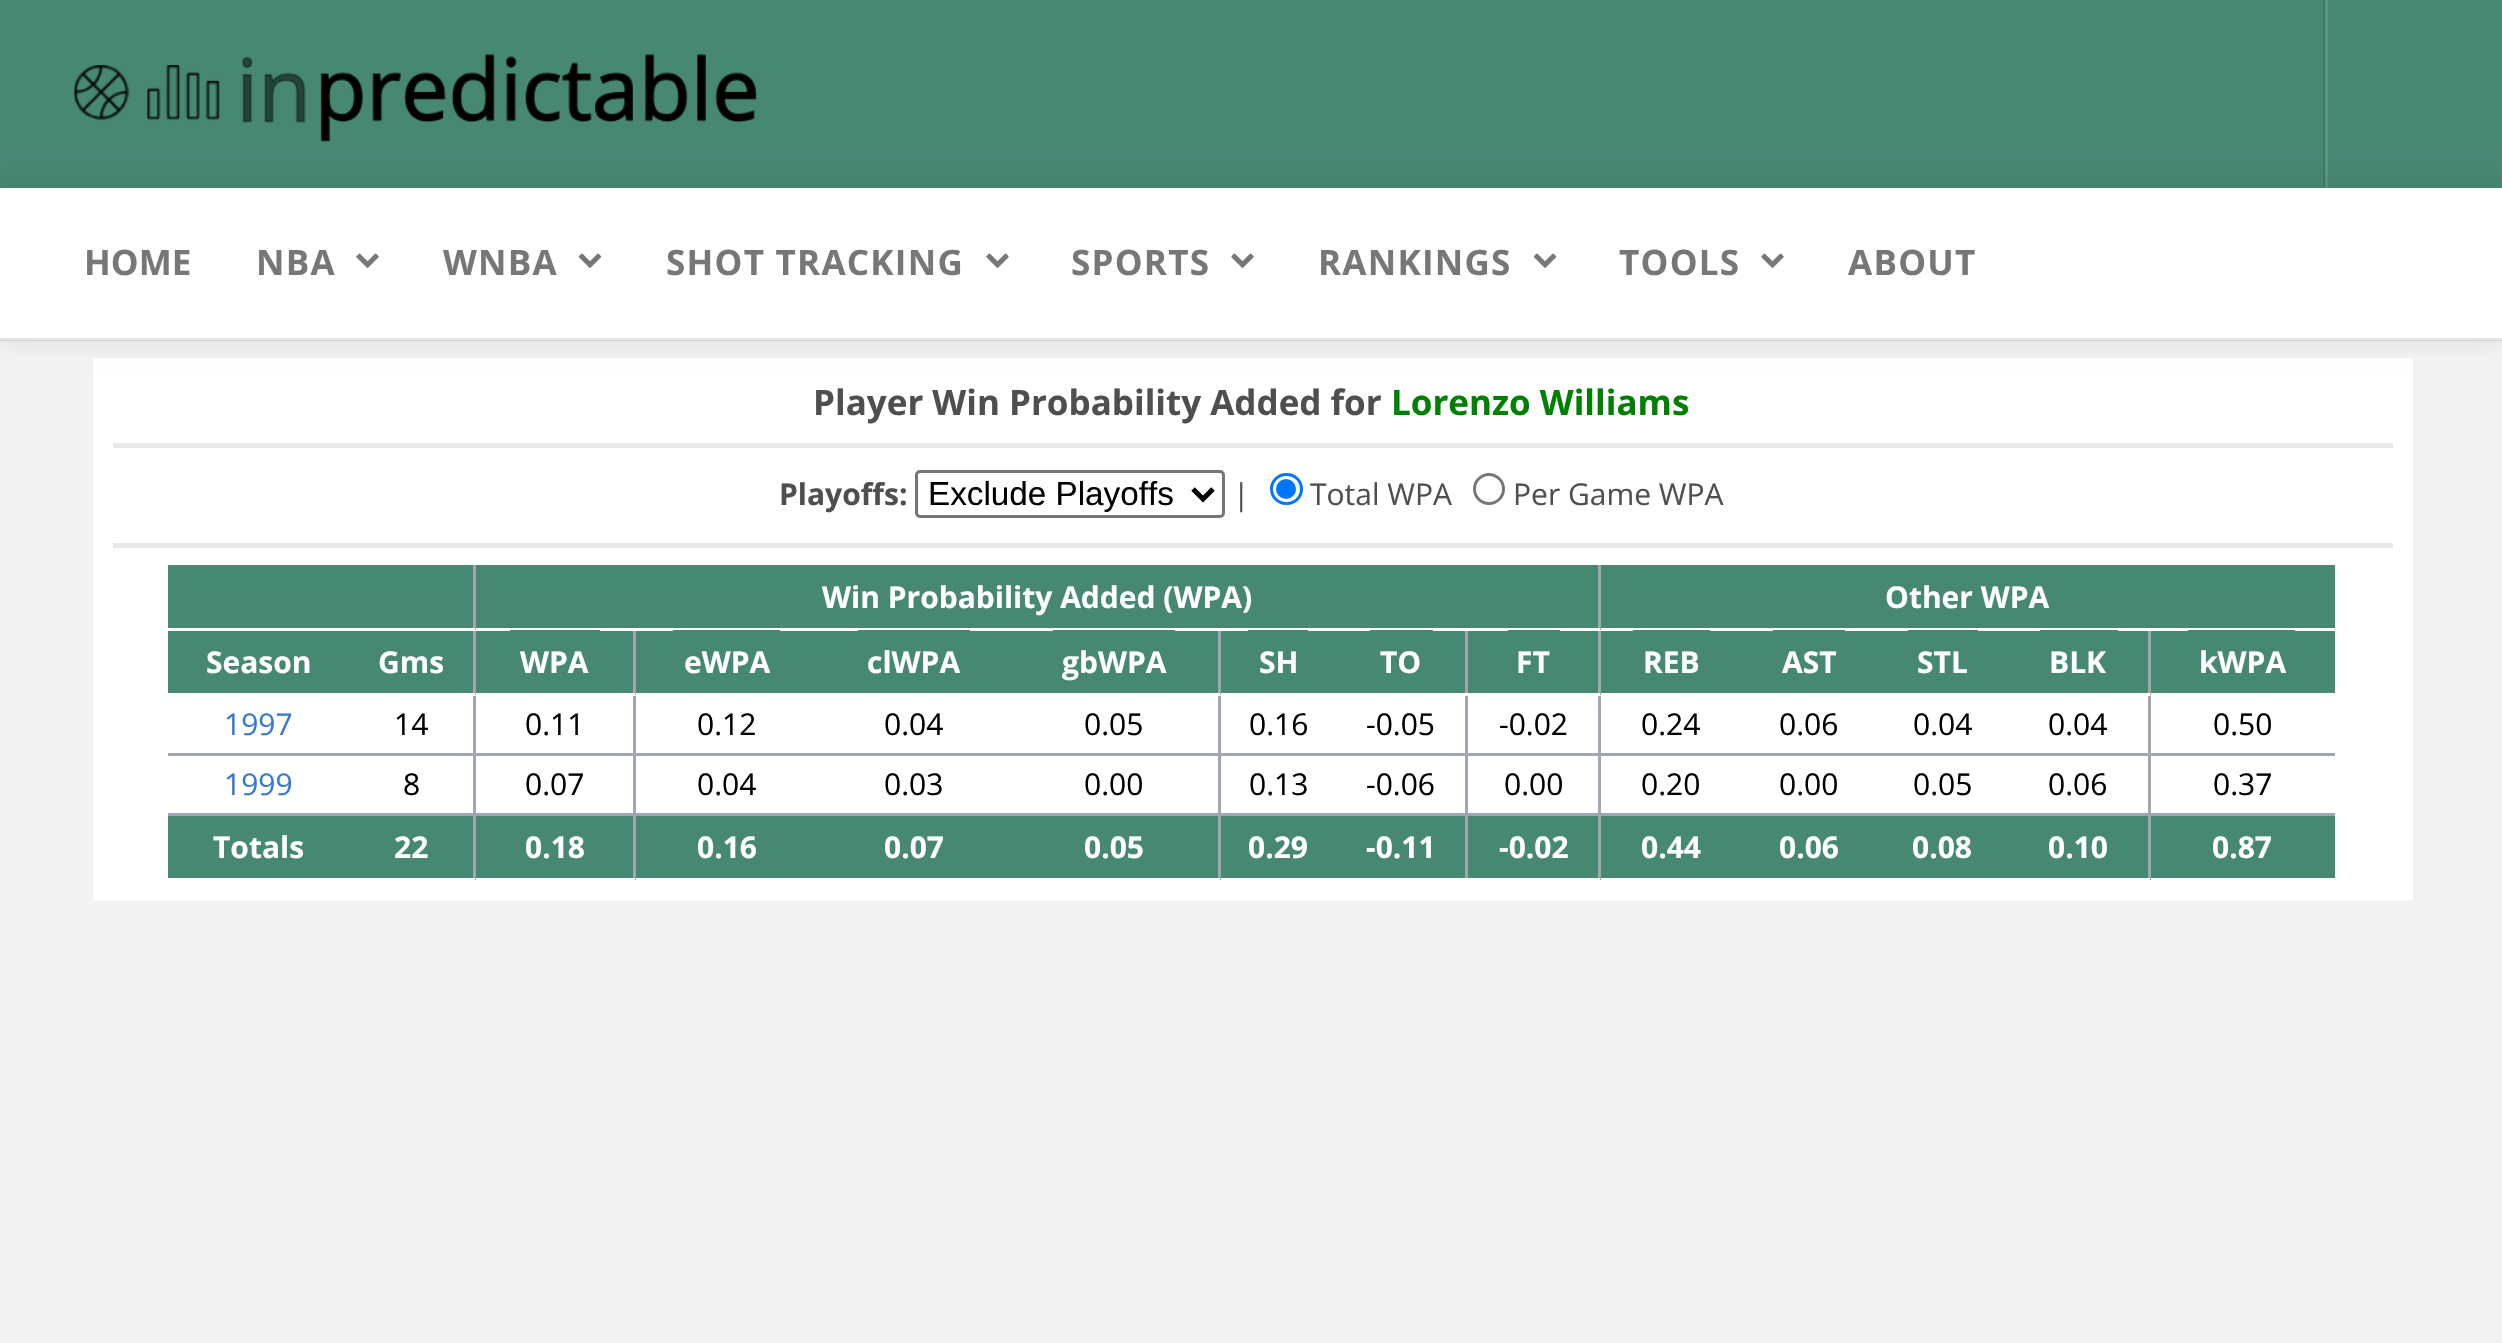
static SkFont makeFont(const char* family, int weight, float size, bool italic = false) {
  SkFontStyle style(weight, SkFontStyle::kNormal_Width,
    italic ? SkFontStyle::kItalic_Slant : SkFontStyle::kUpright_Slant);
  SkFont result(fontMgr->matchFamilyStyle(family, style), size);
  result.setSubpixel(true);
  return result;
}

static void text(SkCanvas* c, const char* s, float x, float y, const SkFont& font, SkColor color) {
  SkPaint ink(SkColor4f::FromColor(color));
  ink.setAntiAlias(true);
  c->drawString(s, x, y, font, ink);
}

static void spacedText(SkCanvas* c, const char* s, float x, float y, const SkFont& font, const SkPaint& ink, float letter, float word) {
  std::vector<SkGlyphID> glyphs(font.countText(s, strlen(s), SkTextEncoding::kUTF8));
  std::vector<float> xs(glyphs.size());
  font.textToGlyphs(s, strlen(s), SkTextEncoding::kUTF8, glyphs);
  font.getXPos(glyphs, xs, x);
  float extra = 0;
  for (size_t i = 0; i < glyphs.size(); i++) {
    xs[i] += extra;
    extra += letter + word * (glyphs[i] == font.unicharToGlyph(' '));
  }
  c->drawTextBlob(SkTextBlob::MakeFromPosHGlyphs(glyphs, xs, y, font), 0, 0, ink);
}

static void box(SkCanvas* c, float l, float t, float r, float b, SkColor color) {
  SkPaint ink(SkColor4f::FromColor(color));
  ink.setAntiAlias(true);
  c->drawRect(SkRect::MakeLTRB(l, t, r, b), ink);
}

static void picture(SkCanvas* c, const char* path, float l, float t, float r, float b) {
  auto image = SkImages::DeferredFromEncodedData(SkData::MakeFromFileName(path));
  c->drawImageRect(image, SkRect::MakeLTRB(l, t, r, b), SkSamplingOptions());
}

void draw(SkCanvas* c) {
  SkPaint paint;
  paint.setAntiAlias(true);
  c->clear(0xfff3f3f3);
  box(c, 0, 0, 2502, 188, 0xff478873);
  picture(c, "img_01.png", 74, 54, 757, 142);
  paint.setColor(0x1a000000);
  c->drawPath(SkPathBuilder().moveTo(2323, 0).lineTo(2323, 213).lineTo(2450, 213).lineTo(2450, 212).lineTo(2325, 212).lineTo(2325, 0).close().detach(), paint);
  box(c, 2325, 0, 2328, 188, 0x1cffffff);
  box(c, 93, 358, 2413, 900, 0xffffffff);
  paint.setMaskFilter(SkMaskFilter::MakeBlur(kNormal_SkBlurStyle, 12.5f));
  c->drawRect(SkRect::MakeLTRB(0, 188, 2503, 340), paint);
  paint.setMaskFilter(nullptr);
  box(c, 0, 188, 2502, 340, 0xffffffff);
  box(c, 0, 338, 2502, 341, 0x1a000000);
  SkFont face1 = makeFont("Open Sans", 700, 35);
  text(c, "HOME", 84, 275, face1, 0xff777777);
  paint.setColor(0xff777777);
  spacedText(c, "NBA", 256, 275, face1, paint, 1.25f, 0);
  picture(c, "img_02.png", 356, 253, 379, 268);
  spacedText(c, "WNBA", 443, 275, face1, paint, 1.25f, 0);
  picture(c, "img_03.png", 578, 253, 602, 268);
  spacedText(c, "SHOT TRACKING", 666, 275, face1, paint, 1.25f, 0);
  picture(c, "img_02.png", 986, 253, 1009, 268);
  spacedText(c, "SPORTS", 1071, 275, face1, paint, 1.25f, 0);
  picture(c, "img_02.png", 1231, 253, 1254, 268);
  spacedText(c, "RANKINGS", 1318, 275, face1, paint, 1.25f, 0);
  picture(c, "img_03.png", 1533, 253, 1557, 268);
  spacedText(c, "TOOLS", 1619, 275, face1, paint, 1.25f, 0);
  picture(c, "img_02.png", 1761, 253, 1784, 268);
  spacedText(c, "ABOUT", 1848, 275, face1, paint, 1.25f, 0);
  text(c, "Player Win Probability Added for", 813, 415, face1, 0xff4f4f4f);
  text(c, "Lorenzo Williams", 1391, 415, face1, 0xff008000);
  box(c, 113, 443, 2393, 448, 0xffe8e8e8);
  SkFont face2 = makeFont("Open Sans", 700, 30);
  text(c, "Playoffs:", 779, 505, face2, 0xff4f4f4f);
  paint.setStyle(SkPaint::kStroke_Style);
  paint.setStrokeWidth(3);
  paint.setColor(0xff767676);
  c->drawRoundRect(SkRect::MakeLTRB(916.5f, 471.5f, 1223.5f, 516.5f), 3.5f, 3.5f, paint);
  paint.setStrokeWidth(5);
  paint.setColor(0xff000000);
  c->drawPath(SkPathBuilder().moveTo(1193, 489).lineTo(1203, 499).lineTo(1213, 489).detach(), paint);
  SkFont face3 = makeFont("Liberation Sans", 400, 33.25f);
  text(c, "Exclude Playoffs", 928, 505, face3, 0xff000000);
  SkFont face4 = makeFont("Open Sans", 400, 30);
  text(c, "|", 1233, 505, face4, 0xff4f4f4f);
  paint.setStrokeWidth(3);
  paint.setColor(0xff0075ff);
  c->drawRoundRect(SkRect::MakeLTRB(1271.5f, 474.5f, 1301.5f, 503.5f), 14.5f, 14.5f, paint);
  paint.setStyle(SkPaint::kFill_Style);
  c->drawCircle(1286, 489, 10, paint);
  text(c, "Total WPA", 1310, 505, face4, 0xff4f4f4f);
  paint.setStyle(SkPaint::kStroke_Style);
  paint.setColor(0xff767676);
  c->drawCircle(1489, 489, 14.5f, paint);
  text(c, "Per Game WPA", 1513, 505, face4, 0xff4f4f4f);
  box(c, 113, 543, 2393, 548, 0xffe8e8e8);
  box(c, 168, 565, 473, 628, 0xff478873);
  box(c, 2148, 813, 2151, 880, 0xffa2a6b2);
  box(c, 2148, 813, 2335, 816, 0xffa2a6b2);
  box(c, 2148, 753, 2151, 815, 0xffa2a6b2);
  box(c, 2148, 753, 2335, 756, 0xffa2a6b2);
  box(c, 2148, 693, 2151, 755, 0xffa2a6b2);
  box(c, 1598, 813, 1601, 880, 0xffa2a6b2);
  box(c, 1598, 813, 2150, 816, 0xffa2a6b2);
  box(c, 1598, 753, 1601, 815, 0xffa2a6b2);
  box(c, 1598, 753, 2150, 756, 0xffa2a6b2);
  box(c, 1598, 693, 1601, 755, 0xffa2a6b2);
  box(c, 1598, 693, 1601, 696, 0xffffffff);
  box(c, 1598, 628, 1601, 695, 0xffa2a6b2);
  box(c, 2148, 693, 2151, 696, 0xffffffff);
  box(c, 2148, 628, 2151, 695, 0xffa2a6b2);
  box(c, 1598, 628, 2151, 631, 0xffffffff);
  box(c, 1598, 565, 1601, 630, 0xffa2a6b2);
  box(c, 1465, 813, 1468, 880, 0xffa2a6b2);
  box(c, 1465, 813, 1600, 816, 0xffa2a6b2);
  box(c, 1465, 753, 1468, 815, 0xffa2a6b2);
  box(c, 1465, 753, 1600, 756, 0xffa2a6b2);
  box(c, 1465, 693, 1468, 755, 0xffa2a6b2);
  box(c, 1218, 813, 1221, 880, 0xffa2a6b2);
  box(c, 1218, 813, 1468, 816, 0xffa2a6b2);
  box(c, 1218, 753, 1221, 815, 0xffa2a6b2);
  box(c, 1218, 753, 1468, 756, 0xffa2a6b2);
  box(c, 1218, 693, 1221, 755, 0xffa2a6b2);
  box(c, 633, 813, 636, 880, 0xffa2a6b2);
  box(c, 633, 813, 1220, 816, 0xffa2a6b2);
  box(c, 633, 753, 636, 815, 0xffa2a6b2);
  box(c, 633, 753, 1220, 756, 0xffa2a6b2);
  box(c, 633, 693, 636, 755, 0xffa2a6b2);
  box(c, 633, 693, 636, 696, 0xffffffff);
  box(c, 633, 628, 636, 695, 0xffa2a6b2);
  box(c, 473, 813, 476, 880, 0xffa2a6b2);
  box(c, 473, 813, 635, 816, 0xffa2a6b2);
  box(c, 473, 753, 476, 815, 0xffa2a6b2);
  box(c, 473, 753, 635, 756, 0xffa2a6b2);
  box(c, 473, 693, 476, 755, 0xffa2a6b2);
  box(c, 473, 693, 635, 696, 0xffffffff);
  box(c, 473, 628, 476, 695, 0xffa2a6b2);
  box(c, 1218, 693, 1221, 696, 0xffffffff);
  box(c, 1218, 628, 1221, 695, 0xffa2a6b2);
  box(c, 1465, 693, 1600, 696, 0xffffffff);
  box(c, 1465, 628, 1468, 695, 0xffa2a6b2);
  box(c, 473, 628, 1600, 631, 0xffffffff);
  box(c, 473, 565, 476, 630, 0xffa2a6b2);
  box(c, 473, 628, 475, 630, 0xffffffff);
  box(c, 476, 565, 1598, 628, 0xff478873);
  text(c, "Win Probability Added (WPA)", 822, 608, face2, 0xffffffff);
  box(c, 1601, 565, 2335, 628, 0xff478873);
  text(c, "Other WPA", 1885, 608, face2, 0xffffffff);
  box(c, 168, 631, 473, 693, 0xff478873);
  text(c, "Season", 206, 673, face2, 0xffffffff);
  box(c, 473, 693, 475, 695, 0xffffffff);
  text(c, "Gms", 378, 673, face2, 0xffffffff);
  box(c, 476, 631, 633, 693, 0xff478873);
  text(c, "WPA", 520, 673, face2, 0xffffffff);
  box(c, 510, 630, 600, 631, 0xff478873);
  box(c, 636, 631, 1218, 693, 0xff478873);
  text(c, "eWPA", 684, 673, face2, 0xffffffff);
  box(c, 673, 630, 780, 631, 0xff478873);
  text(c, "clWPA", 867, 673, face2, 0xffffffff);
  box(c, 858, 630, 970, 631, 0xff478873);
  box(c, 1218, 693, 1220, 695, 0xffffffff);
  text(c, "gbWPA", 1062, 673, face2, 0xffffffff);
  box(c, 1053, 630, 1175, 631, 0xff478873);
  box(c, 1221, 631, 1465, 693, 0xff478873);
  text(c, "SH", 1259, 673, face2, 0xffffffff);
  box(c, 1248, 630, 1308, 631, 0xff478873);
  box(c, 1465, 693, 1468, 695, 0xffffffff);
  text(c, "TO", 1380, 673, face2, 0xffffffff);
  box(c, 1370, 630, 1433, 631, 0xff478873);
  box(c, 1468, 631, 1598, 693, 0xff478873);
  text(c, "FT", 1516, 673, face2, 0xffffffff);
  box(c, 1508, 630, 1560, 631, 0xff478873);
  box(c, 1601, 631, 2148, 693, 0xff478873);
  text(c, "REB", 1643, 673, face2, 0xffffffff);
  box(c, 1633, 630, 1710, 631, 0xff478873);
  text(c, "AST", 1782, 673, face2, 0xffffffff);
  box(c, 1773, 630, 1845, 631, 0xff478873);
  text(c, "STL", 1917, 673, face2, 0xffffffff);
  box(c, 1908, 630, 1978, 631, 0xff478873);
  box(c, 2148, 693, 2150, 695, 0xffffffff);
  text(c, "BLK", 2049, 673, face2, 0xffffffff);
  box(c, 2040, 630, 2118, 631, 0xff478873);
  box(c, 2151, 631, 2335, 693, 0xff478873);
  text(c, "kWPA", 2199, 673, face2, 0xffffffff);
  box(c, 2188, 630, 2295, 631, 0xff478873);
  text(c, "1997", 224, 735, face4, 0xff3778d2);
  box(c, 168, 753, 475, 756, 0xffa2a6b2);
  text(c, "14", 394, 735, face4, 0xff000000);
  text(c, "0.11", 525, 735, face4, 0xff000000);
  text(c, "0.12", 697, 735, face4, 0xff000000);
  text(c, "0.04", 884, 735, face4, 0xff000000);
  text(c, "0.05", 1084, 735, face4, 0xff000000);
  text(c, "0.16", 1249, 735, face4, 0xff000000);
  text(c, "-0.05", 1366, 735, face4, 0xff000000);
  text(c, "-0.02", 1499, 735, face4, 0xff000000);
  text(c, "0.24", 1641, 735, face4, 0xff000000);
  text(c, "0.06", 1779, 735, face4, 0xff000000);
  text(c, "0.04", 1913, 735, face4, 0xff000000);
  text(c, "0.04", 2048, 735, face4, 0xff000000);
  text(c, "0.50", 2213, 735, face4, 0xff000000);
  text(c, "1999", 224, 795, face4, 0xff3778d2);
  box(c, 168, 813, 475, 816, 0xffa2a6b2);
  text(c, "8", 403, 795, face4, 0xff000000);
  text(c, "0.07", 525, 795, face4, 0xff000000);
  text(c, "0.04", 697, 795, face4, 0xff000000);
  text(c, "0.03", 884, 795, face4, 0xff000000);
  text(c, "0.00", 1084, 795, face4, 0xff000000);
  text(c, "0.13", 1249, 795, face4, 0xff000000);
  text(c, "-0.06", 1366, 795, face4, 0xff000000);
  text(c, "0.00", 1504, 795, face4, 0xff000000);
  text(c, "0.20", 1641, 795, face4, 0xff000000);
  text(c, "0.00", 1779, 795, face4, 0xff000000);
  text(c, "0.05", 1913, 795, face4, 0xff000000);
  text(c, "0.06", 2048, 795, face4, 0xff000000);
  text(c, "0.37", 2213, 795, face4, 0xff000000);
  box(c, 168, 816, 473, 878, 0xff478873);
  text(c, "Totals", 213, 858, face2, 0xffffffff);
  box(c, 473, 878, 475, 880, 0xffffffff);
  text(c, "22", 394, 858, face2, 0xffffffff);
  box(c, 476, 816, 633, 878, 0xff478873);
  box(c, 633, 878, 635, 880, 0xffffffff);
  text(c, "0.18", 525, 858, face2, 0xffffffff);
  box(c, 636, 816, 1218, 878, 0xff478873);
  text(c, "0.16", 697, 858, face2, 0xffffffff);
  text(c, "0.07", 884, 858, face2, 0xffffffff);
  box(c, 1218, 878, 1220, 880, 0xffffffff);
  text(c, "0.05", 1084, 858, face2, 0xffffffff);
  box(c, 1221, 816, 1465, 878, 0xff478873);
  text(c, "0.29", 1248, 858, face2, 0xffffffff);
  box(c, 1465, 878, 1468, 880, 0xffffffff);
  text(c, "-0.11", 1366, 858, face2, 0xffffffff);
  box(c, 1468, 816, 1598, 878, 0xff478873);
  box(c, 1598, 878, 1600, 880, 0xffffffff);
  text(c, "-0.02", 1499, 858, face2, 0xffffffff);
  box(c, 1601, 816, 2148, 878, 0xff478873);
  text(c, "0.44", 1641, 858, face2, 0xffffffff);
  text(c, "0.06", 1779, 858, face2, 0xffffffff);
  text(c, "0.08", 1912, 858, face2, 0xffffffff);
  box(c, 2148, 878, 2150, 880, 0xffffffff);
  text(c, "0.10", 2048, 858, face2, 0xffffffff);
  box(c, 2151, 816, 2335, 878, 0xff478873);
  text(c, "0.87", 2212, 858, face2, 0xffffffff);
}
